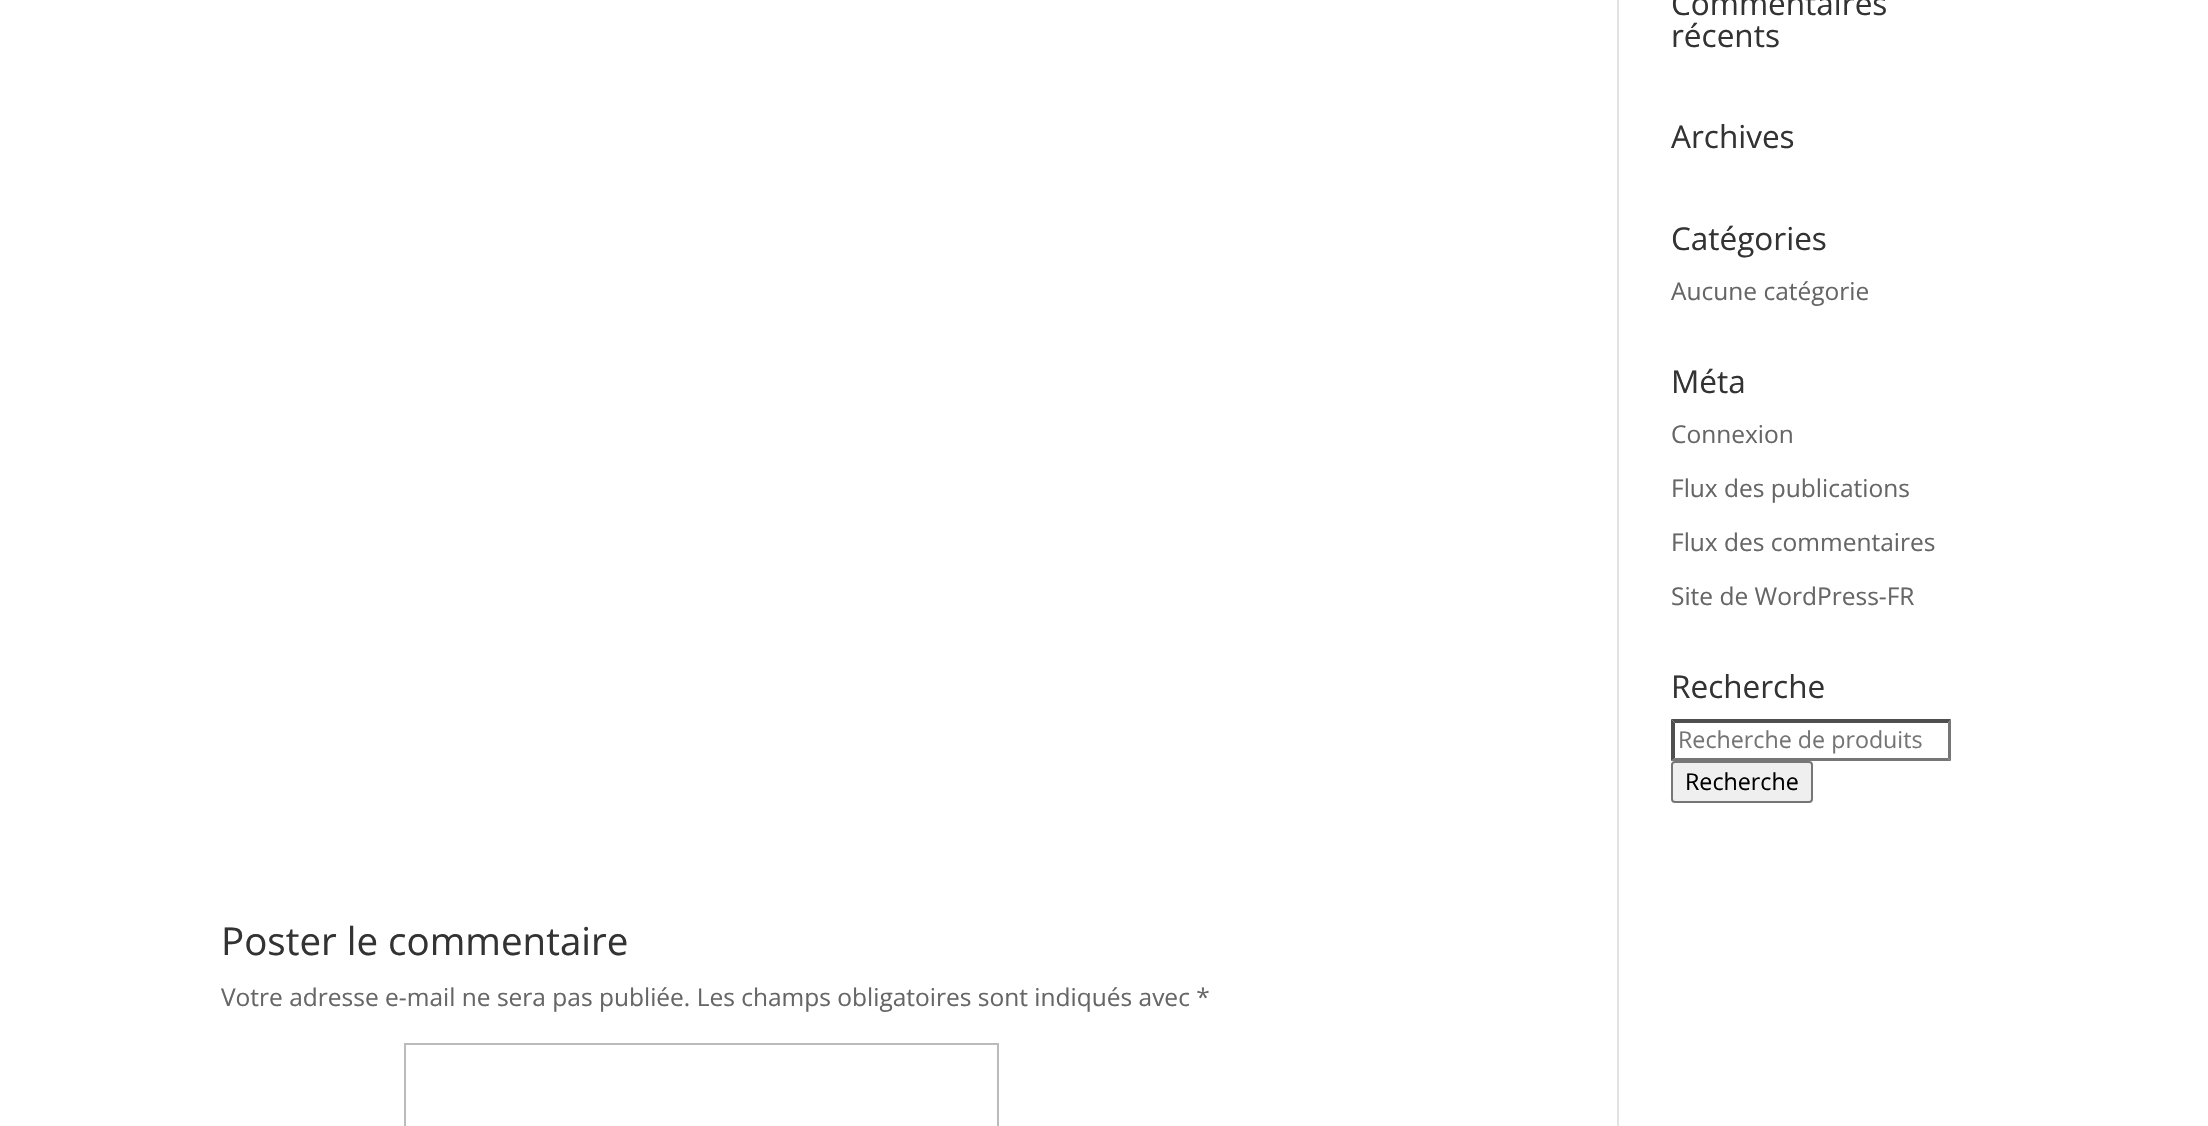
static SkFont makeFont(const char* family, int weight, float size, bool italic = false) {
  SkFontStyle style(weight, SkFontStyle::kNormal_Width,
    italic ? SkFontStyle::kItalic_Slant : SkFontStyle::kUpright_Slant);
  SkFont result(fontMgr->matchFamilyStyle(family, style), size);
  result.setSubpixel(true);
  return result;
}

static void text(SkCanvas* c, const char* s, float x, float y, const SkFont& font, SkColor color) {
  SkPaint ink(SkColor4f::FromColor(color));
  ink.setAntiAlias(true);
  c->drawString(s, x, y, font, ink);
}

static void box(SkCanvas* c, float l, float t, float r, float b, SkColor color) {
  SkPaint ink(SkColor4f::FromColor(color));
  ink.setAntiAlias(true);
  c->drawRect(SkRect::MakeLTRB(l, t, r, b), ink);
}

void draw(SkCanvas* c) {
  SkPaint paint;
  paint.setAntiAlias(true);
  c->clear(0xffffffff);
  SkFont face1 = makeFont("Open Sans", 400, 31.5f);
  text(c, "Commentaires", 1671, 15, face1, 0xff333333);
  text(c, "récents", 1671, 47, face1, 0xff333333);
  text(c, "Archives", 1671, 148, face1, 0xff333333);
  text(c, "Catégories", 1671, 250, face1, 0xff333333);
  SkFont face2 = makeFont("Open Sans", 400, 24.5f);
  text(c, "Aucune catégorie", 1671, 300, face2, 0xff666666);
  text(c, "Méta", 1671, 393, face1, 0xff333333);
  text(c, "Connexion", 1671, 443, face2, 0xff666666);
  text(c, "Flux des publications", 1671, 497, face2, 0xff666666);
  text(c, "Flux des commentaires", 1671, 551, face2, 0xff666666);
  text(c, "Site de WordPress-FR", 1671, 605, face2, 0xff666666);
  text(c, "Recherche", 1671, 698, face1, 0xff333333);
  paint.setColor(0xff4f4f4f);
  c->drawPath(SkPathBuilder().moveTo(1671, 719).lineTo(1951, 719).lineTo(1948, 723).lineTo(1675, 723).close().detach(), paint);
  paint.setColor(0xff767676);
  c->drawPath(SkPathBuilder().moveTo(1951, 719).lineTo(1951, 761).lineTo(1948, 758).lineTo(1948, 723).close().detach(), paint);
  c->drawPath(SkPathBuilder().moveTo(1951, 761).lineTo(1671, 761).lineTo(1675, 758).lineTo(1948, 758).close().detach(), paint);
  paint.setColor(0xff4f4f4f);
  c->drawPath(SkPathBuilder().moveTo(1671, 761).lineTo(1671, 719).lineTo(1675, 723).lineTo(1675, 758).close().detach(), paint);
  c->save();
  c->clipRect(SkRect::MakeLTRB(1678, 725, 1922, 756));
  SkFont face3 = makeFont("Open Sans", 400, 23.25f);
  text(c, "Recherche de produits", 1678, 748, face3, 0xff757575);
  c->restore();
  paint.setColor(0xffefefef);
  c->drawRoundRect(SkRect::MakeLTRB(1672, 762, 1812, 802), 3, 3, paint);
  paint.setStyle(SkPaint::kStroke_Style);
  paint.setStrokeWidth(2);
  paint.setColor(0xff767676);
  c->drawRoundRect(SkRect::MakeLTRB(1672, 762, 1812, 802), 3, 3, paint);
  text(c, "Recherche", 1685, 790, face3, 0xff000000);
  SkFont face4 = makeFont("Open Sans", 400, 38.5f);
  text(c, "Poster le commentaire", 221, 955, face4, 0xff333333);
  text(c, "Votre adresse e-mail ne sera pas publiée. Les champs obligatoires sont indiqués avec *", 221, 1006, face2, 0xff666666);
  paint.setColor(0xffbbbbbb);
  c->drawRect(SkRect::MakeLTRB(405, 1044, 998, 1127), paint);
  box(c, 1617, 0, 1619, 1126, 0xffe2e2e2);
}
